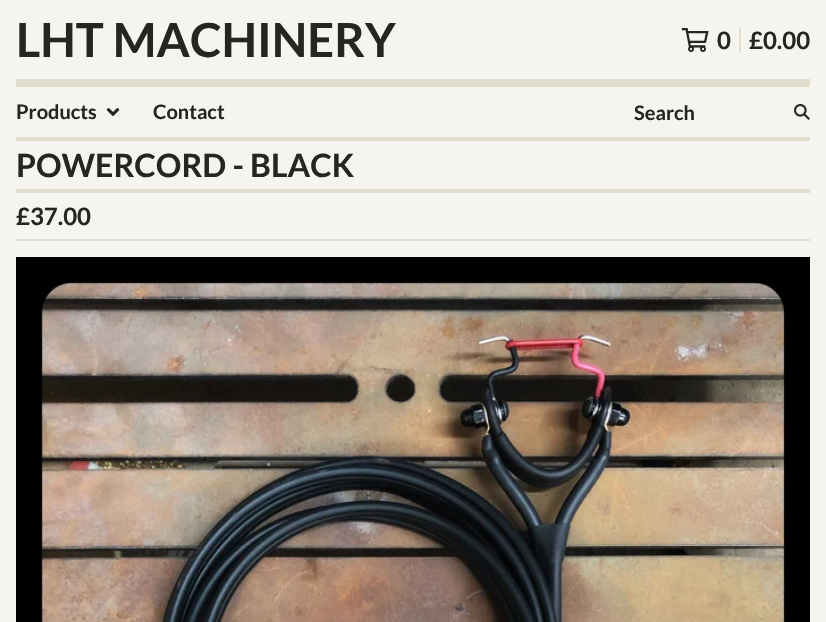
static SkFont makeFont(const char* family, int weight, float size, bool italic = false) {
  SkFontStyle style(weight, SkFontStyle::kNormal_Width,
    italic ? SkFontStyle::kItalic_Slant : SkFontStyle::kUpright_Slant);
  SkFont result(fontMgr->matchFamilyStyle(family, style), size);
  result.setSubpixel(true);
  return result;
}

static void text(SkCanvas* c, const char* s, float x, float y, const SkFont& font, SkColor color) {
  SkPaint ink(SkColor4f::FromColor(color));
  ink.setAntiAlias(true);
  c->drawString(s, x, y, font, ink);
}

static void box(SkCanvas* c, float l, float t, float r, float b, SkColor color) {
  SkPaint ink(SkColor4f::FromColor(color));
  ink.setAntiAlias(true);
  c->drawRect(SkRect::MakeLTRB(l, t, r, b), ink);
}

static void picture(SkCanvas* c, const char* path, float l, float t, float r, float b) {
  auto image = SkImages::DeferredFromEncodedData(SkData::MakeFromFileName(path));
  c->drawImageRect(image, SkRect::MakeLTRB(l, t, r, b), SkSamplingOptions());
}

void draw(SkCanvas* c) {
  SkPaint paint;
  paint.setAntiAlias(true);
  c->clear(0xfff5f4ee);
  box(c, 16, 79, 810, 87, 0xffe1decc);
  SkFont face1 = makeFont("Lato", 700, 47);
  text(c, "LHT MACHINERY", 16, 57, face1, 0xff262522);
  picture(c, "img_01.png", 681, 28, 709, 52);
  box(c, 739, 28, 741, 52, 0xffe1decc);
  SkFont face2 = makeFont("Lato", 700, 24);
  text(c, "0", 717, 49, face2, 0xff262522);
  text(c, "£0.00", 749, 49, face2, 0xff262522);
  box(c, 16, 137, 810, 141, 0xffe1decc);
  SkFont face3 = makeFont("Lato", 700, 20);
  text(c, "Products", 16, 119, face3, 0xff262522);
  picture(c, "img_02.png", 106, 108, 120, 116);
  text(c, "Contact", 153, 119, face3, 0xff262522);
  text(c, "Search", 634, 120, face3, 0xff262522);
  picture(c, "img_03.png", 794, 104, 810, 120);
  box(c, 16, 189, 810, 193, 0xffe1decc);
  SkFont face4 = makeFont("Lato", 700, 32);
  text(c, "POWERCORD - BLACK", 16, 177, face4, 0xff262522);
  box(c, 16, 239, 810, 241, 0xffe1decc);
  text(c, "£37.00", 16, 225, face2, 0xff262522);
  picture(c, "img_04.png", 16, 257, 810, 622);
}
